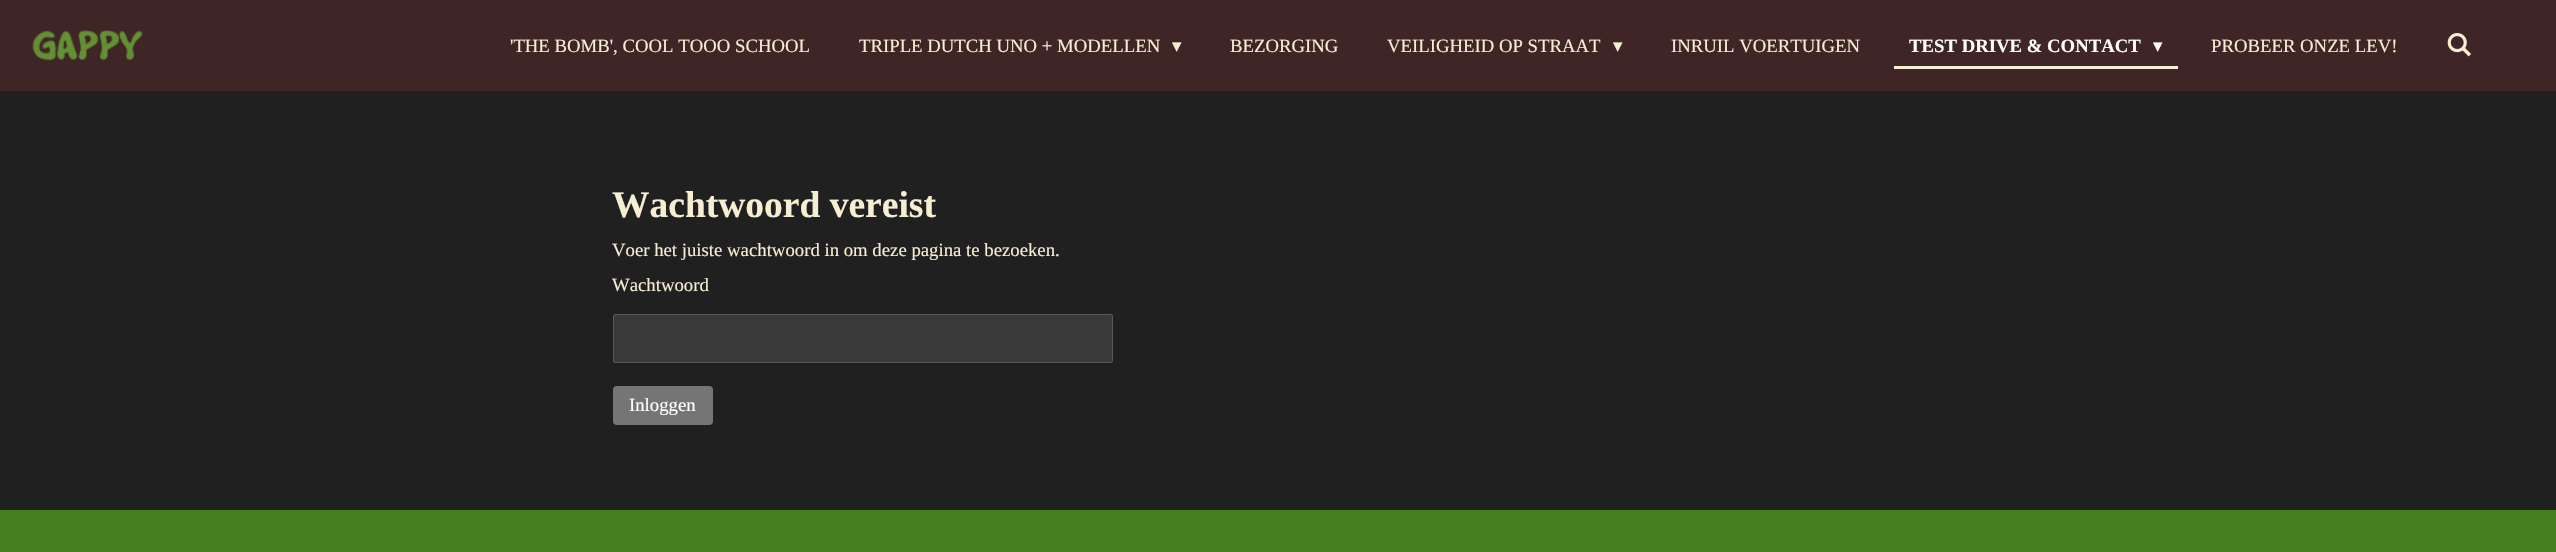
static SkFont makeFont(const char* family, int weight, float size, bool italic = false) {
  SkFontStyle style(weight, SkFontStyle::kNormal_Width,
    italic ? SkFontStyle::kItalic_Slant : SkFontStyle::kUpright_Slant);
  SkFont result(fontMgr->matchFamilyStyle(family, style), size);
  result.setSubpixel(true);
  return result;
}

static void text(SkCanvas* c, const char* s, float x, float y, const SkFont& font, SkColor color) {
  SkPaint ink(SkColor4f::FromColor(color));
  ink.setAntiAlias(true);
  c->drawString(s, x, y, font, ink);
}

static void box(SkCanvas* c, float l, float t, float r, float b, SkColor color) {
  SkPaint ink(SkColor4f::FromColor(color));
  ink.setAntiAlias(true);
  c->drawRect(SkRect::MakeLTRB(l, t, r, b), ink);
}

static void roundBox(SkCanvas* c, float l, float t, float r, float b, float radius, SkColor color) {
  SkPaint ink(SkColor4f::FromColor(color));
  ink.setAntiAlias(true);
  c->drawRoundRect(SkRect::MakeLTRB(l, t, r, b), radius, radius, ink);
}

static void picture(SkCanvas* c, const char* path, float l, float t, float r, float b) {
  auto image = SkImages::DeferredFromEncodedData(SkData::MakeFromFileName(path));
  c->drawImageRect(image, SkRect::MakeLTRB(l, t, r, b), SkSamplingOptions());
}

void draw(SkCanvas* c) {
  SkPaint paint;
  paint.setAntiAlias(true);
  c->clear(0xff3f2525);
  picture(c, "img_01.png", 32, 30, 143, 61);
  SkFont face1 = makeFont("Liberation Serif", 400, 18.75f);
  text(c, "'THE BOMB', COOL TOOO SCHOOL", 510, 52, face1, 0xfff6eed2);
  text(c, "TRIPLE DUTCH UNO + MODELLEN", 859, 52, face1, 0xfff6eed2);
  SkFont face2 = makeFont("DejaVu Sans", 400, 18.75f);
  text(c, "▾", 1172, 52, face2, 0xfff6eed2);
  text(c, "BEZORGING", 1230, 52, face1, 0xfff6eed2);
  text(c, "VEILIGHEID OP STRAAT", 1387, 52, face1, 0xfff6eed2);
  text(c, "▾", 1613, 52, face2, 0xfff6eed2);
  text(c, "INRUIL VOERTUIGEN", 1671, 52, face1, 0xfff6eed2);
  paint.setColor(0xfff6eed2);
  c->drawPath(SkPathBuilder().moveTo(1894, 66).lineTo(1894, 69).lineTo(2178, 69).lineTo(2178, 28).lineTo(2178, 66).close().detach(), paint);
  SkFont face3 = makeFont("Liberation Serif", 700, 18.75f);
  text(c, "TEST DRIVE & CONTACT", 1909, 52, face3, 0xffffffff);
  text(c, "▾", 2153, 52, face2, 0xffffffff);
  text(c, "PROBEER ONZE LEV!", 2211, 52, face1, 0xfff6eed2);
  picture(c, "img_02.png", 2447, 33, 2471, 57);
  box(c, 0, 91, 2556, 510, 0xff202020);
  SkFont face4 = makeFont("Liberation Serif", 700, 37.5f);
  text(c, "Wachtwoord vereist", 612, 217, face4, 0xfff6eed2);
  text(c, "Voer het juiste wachtwoord in om deze pagina te bezoeken.", 612, 256, face1, 0xfff6eed2);
  text(c, "Wachtwoord", 612, 291, face1, 0xfff6eed2);
  roundBox(c, 613, 314, 1113, 363, 2.5f, 0xff3a3a3a);
  paint.setStyle(SkPaint::kStroke_Style);
  paint.setStrokeWidth(1);
  paint.setColor(0x80797979);
  c->drawRoundRect(SkRect::MakeLTRB(613.5f, 314.5f, 1112.5f, 362.5f), 2, 2, paint);
  roundBox(c, 613, 386, 713, 425, 4, 0xff757575);
  text(c, "Inloggen", 629, 411, face1, 0xffffffff);
  box(c, 0, 510, 2556, 552, 0xff457e1d);
}
